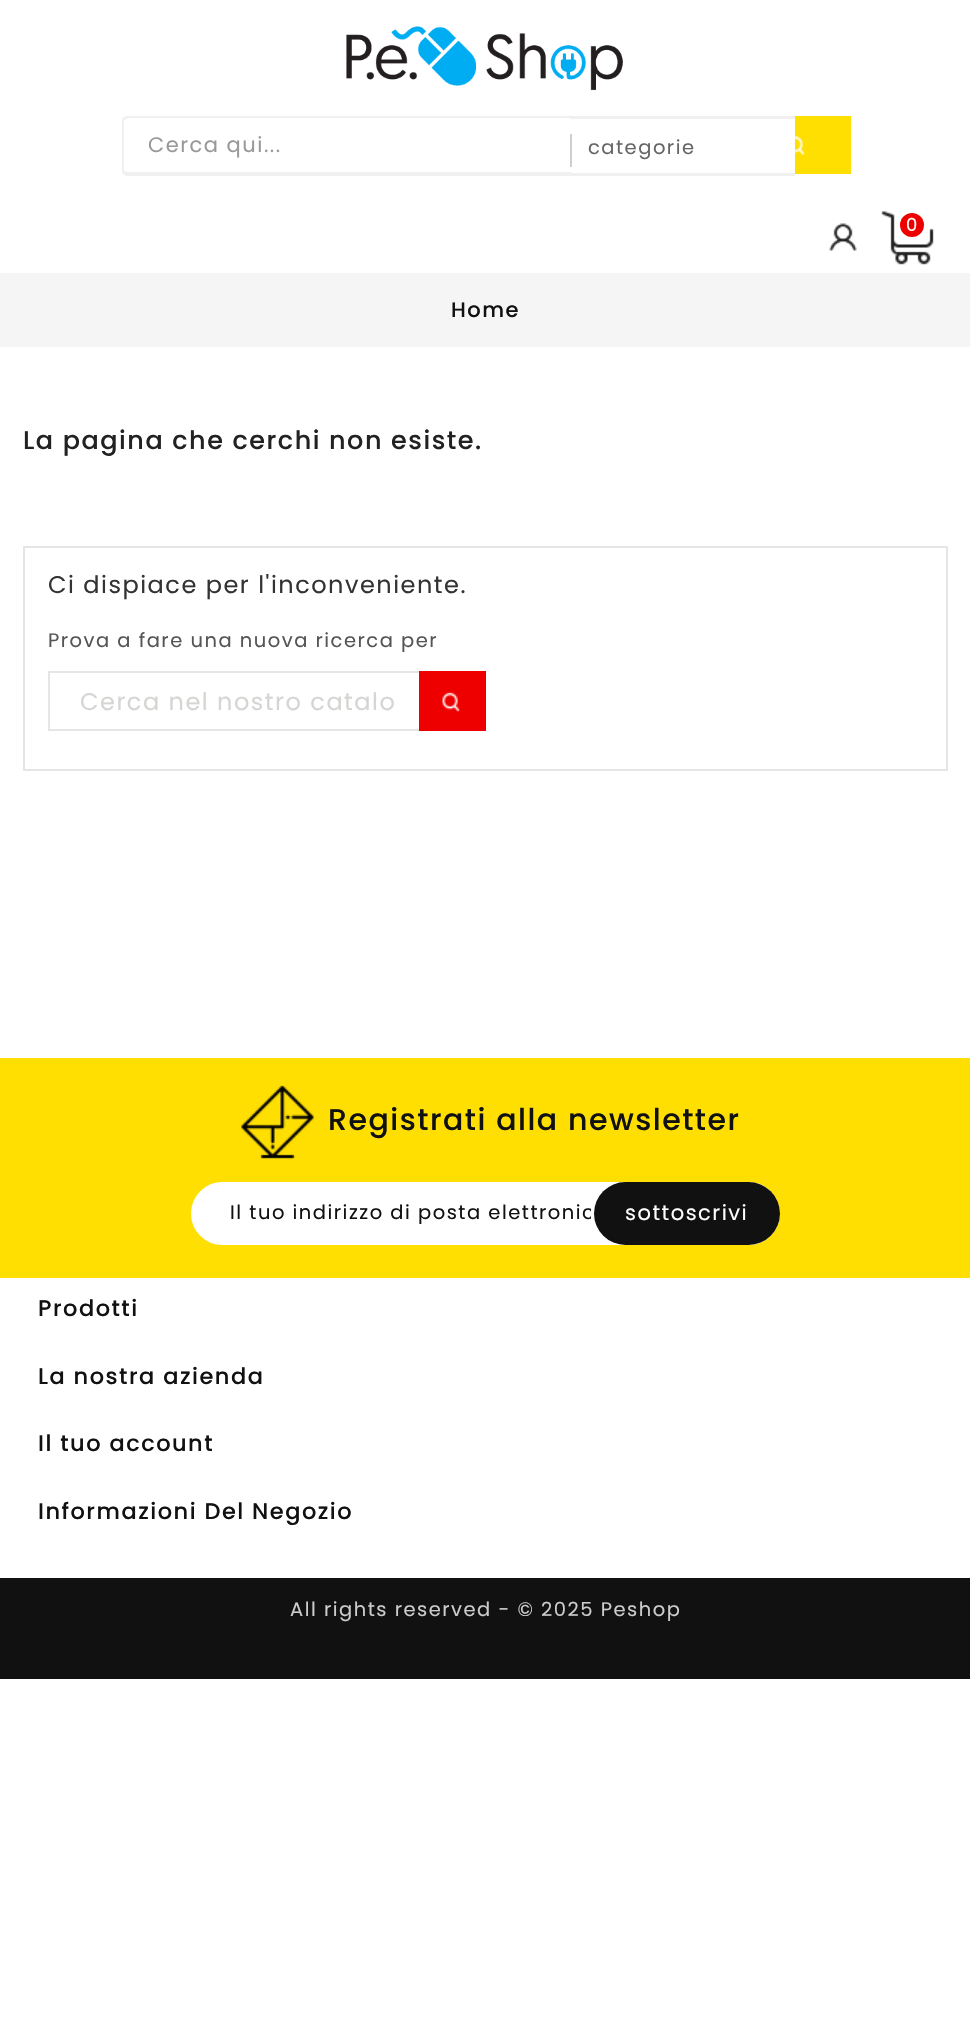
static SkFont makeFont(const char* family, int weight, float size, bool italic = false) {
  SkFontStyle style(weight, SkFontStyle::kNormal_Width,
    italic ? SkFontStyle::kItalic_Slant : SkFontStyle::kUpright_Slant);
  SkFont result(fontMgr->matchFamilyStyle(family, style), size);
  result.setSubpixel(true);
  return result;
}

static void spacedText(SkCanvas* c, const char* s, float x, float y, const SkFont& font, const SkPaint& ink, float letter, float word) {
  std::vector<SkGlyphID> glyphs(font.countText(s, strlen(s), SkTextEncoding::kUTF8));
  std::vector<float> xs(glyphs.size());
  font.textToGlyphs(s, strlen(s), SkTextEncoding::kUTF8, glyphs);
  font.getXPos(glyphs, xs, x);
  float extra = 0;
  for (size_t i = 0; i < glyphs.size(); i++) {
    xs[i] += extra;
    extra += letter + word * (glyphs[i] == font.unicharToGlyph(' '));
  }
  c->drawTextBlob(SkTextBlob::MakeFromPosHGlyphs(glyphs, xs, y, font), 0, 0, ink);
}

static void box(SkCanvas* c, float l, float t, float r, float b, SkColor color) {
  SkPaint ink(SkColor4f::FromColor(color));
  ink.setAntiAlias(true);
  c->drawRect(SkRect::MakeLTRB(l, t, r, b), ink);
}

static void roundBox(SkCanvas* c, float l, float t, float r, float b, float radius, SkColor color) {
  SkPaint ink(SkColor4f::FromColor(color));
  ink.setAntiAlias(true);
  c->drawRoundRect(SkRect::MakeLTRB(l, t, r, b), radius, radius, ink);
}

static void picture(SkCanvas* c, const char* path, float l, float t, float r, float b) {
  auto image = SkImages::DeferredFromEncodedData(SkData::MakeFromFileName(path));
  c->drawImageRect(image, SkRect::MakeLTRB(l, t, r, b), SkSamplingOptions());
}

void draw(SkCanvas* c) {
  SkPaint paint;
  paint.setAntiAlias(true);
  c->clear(0xffffffff);
  picture(c, "img_01.png", 346, 26, 623, 91);
  paint.setColor(0xfff0f0f0);
  c->drawPath(SkPathBuilder(SkPathFillType::kEvenOdd).moveTo(128, 116).lineTo(572, 116).lineTo(572, 176).lineTo(128, 176).cubicTo(124, 176, 122, 173, 122, 170).lineTo(122, 122).cubicTo(122, 118, 124, 116, 128, 116).close().moveTo(128, 118).lineTo(572, 118).lineTo(572, 172).lineTo(128, 172).cubicTo(126, 172, 124, 171, 124, 170).lineTo(124, 122).cubicTo(124, 120, 126, 118, 128, 118).close().detach(), paint);
  c->save();
  c->clipRect(SkRect::MakeLTRB(149, 131, 548, 162));
  SkFont face1 = makeFont("Poppins", 400, 21);
  paint.setColor(0xff999999);
  spacedText(c, "Cerca qui...", 148, 152, face1, paint, 1.5f, 0);
  c->restore();
  box(c, 570, 116, 795, 119, 0xfff0f0f0);
  box(c, 570, 173, 795, 176, 0xfff0f0f0);
  box(c, 570, 134, 572, 167, 0xffcfcfcf);
  SkFont face2 = makeFont("Poppins", 400, 19.5f);
  paint.setColor(0xff666666);
  spacedText(c, "categorie", 588, 154, face2, paint, 1.5f, 0);
  box(c, 795, 116, 851, 174, 0xffffde01);
  picture(c, "img_02.png", 795, 136, 805, 155);
  picture(c, "img_03.png", 829, 223, 857, 251);
  paint.setColor(0xffee0000);
  c->drawCircle(912, 225, 12, paint);
  SkFont face3 = makeFont("Poppins", 400, 18);
  paint.setColor(0xffffffff);
  spacedText(c, "0", 906, 231, face3, paint, 1.5f, 0);
  picture(c, "img_04.png", 881, 211, 934, 265);
  box(c, 0, 273, 970, 347, 0xfff5f5f5);
  SkFont face4 = makeFont("Poppins", 500, 21);
  paint.setColor(0xff111111);
  spacedText(c, "Home", 451, 317, face4, paint, 1.5f, 0);
  SkFont face5 = makeFont("Poppins", 500, 25.5f);
  paint.setColor(0xff222222);
  spacedText(c, "La pagina che cerchi non esiste.", 23, 449, face5, paint, 1.5f, 0);
  paint.setStyle(SkPaint::kStroke_Style);
  paint.setStrokeWidth(2);
  paint.setColor(0xffe5e5e5);
  c->drawRect(SkRect::MakeLTRB(24, 547, 947, 770), paint);
  SkFont face6 = makeFont("Poppins", 400, 24);
  paint.setStyle(SkPaint::kFill_Style);
  paint.setColor(0xff333333);
  spacedText(c, "Ci dispiace per l'inconveniente.", 48, 593, face6, paint, 1.5f, 0);
  paint.setColor(0xff555555);
  spacedText(c, "Prova a fare una nuova ricerca per", 48, 647, face2, paint, 1.5f, 0);
  paint.setStyle(SkPaint::kStroke_Style);
  paint.setColor(0xffe5e5e5);
  c->drawRect(SkRect::MakeLTRB(49, 672, 485, 730), paint);
  paint.setStyle(SkPaint::kFill_Style);
  paint.setColor(0xffd6d5d3);
  spacedText(c, "Cerca nel nostro catalo", 80, 710, face6, paint, 1.5f, 0);
  box(c, 419, 671, 486, 731, 0xffee0000);
  picture(c, "img_05.png", 442, 692, 460, 712);
  box(c, 0, 1058, 970, 1278, 0xffffde01);
  picture(c, "img_06.png", 241, 1085, 314, 1159);
  SkFont face7 = makeFont("Poppins", 500, 30);
  paint.setColor(0xff111111);
  spacedText(c, "Registrati alla newsletter", 328, 1130, face7, paint, 1.5f, 0);
  paint.setColor(0xffffffff);
  c->drawRoundRect(SkRect::MakeLTRB(192, 1183, 779, 1244), 30.5f, 30.5f, paint);
  paint.setStyle(SkPaint::kStroke_Style);
  c->drawRoundRect(SkRect::MakeLTRB(192, 1183, 779, 1244), 30.5f, 30.5f, paint);
  c->save();
  c->clipRect(SkRect::MakeLTRB(215, 1199, 591, 1229));
  paint.setStyle(SkPaint::kFill_Style);
  paint.setColor(0xff111111);
  spacedText(c, "Il tuo indirizzo di posta elettronic", 230, 1219, face2, paint, 1.5f, 0);
  c->restore();
  roundBox(c, 594, 1182, 780, 1245, 31.5f, 0xff111111);
  paint.setColor(0xffffffff);
  spacedText(c, "sottoscrivi", 625, 1220, face1, paint, 1.5f, 0);
  SkFont face8 = makeFont("Poppins", 500, 22.5f);
  paint.setColor(0xff111111);
  spacedText(c, "Prodotti", 38, 1316, face8, paint, 1.5f, 0);
  spacedText(c, "La nostra azienda", 38, 1384, face8, paint, 1.5f, 0);
  spacedText(c, "Il tuo account", 38, 1451, face8, paint, 1.5f, 0);
  spacedText(c, "Informazioni Del Negozio", 38, 1519, face8, paint, 1.5f, 0);
  box(c, 0, 1578, 970, 1679, 0xff111111);
  paint.setColor(0xffcccccc);
  spacedText(c, "All rights reserved - © 2025 Peshop", 290, 1616, face2, paint, 1.5f, 0);
}
